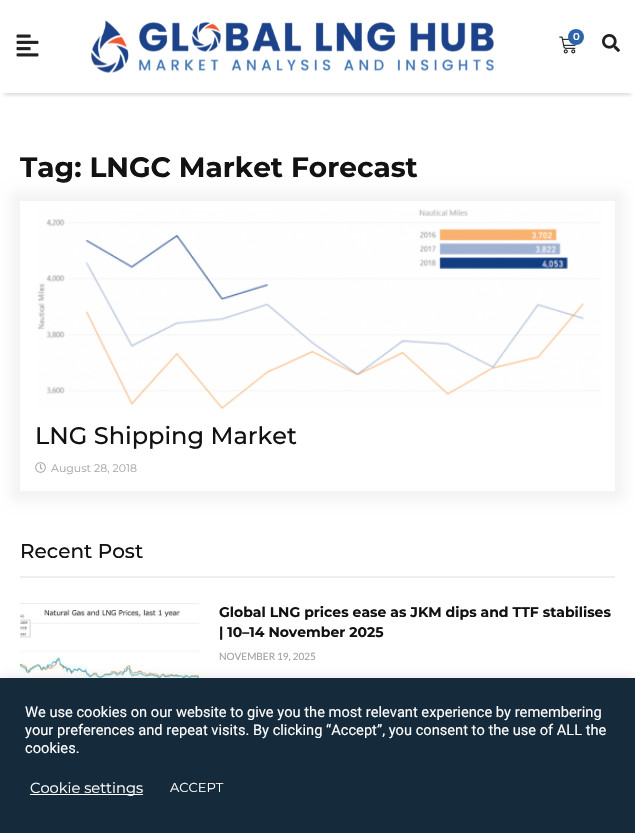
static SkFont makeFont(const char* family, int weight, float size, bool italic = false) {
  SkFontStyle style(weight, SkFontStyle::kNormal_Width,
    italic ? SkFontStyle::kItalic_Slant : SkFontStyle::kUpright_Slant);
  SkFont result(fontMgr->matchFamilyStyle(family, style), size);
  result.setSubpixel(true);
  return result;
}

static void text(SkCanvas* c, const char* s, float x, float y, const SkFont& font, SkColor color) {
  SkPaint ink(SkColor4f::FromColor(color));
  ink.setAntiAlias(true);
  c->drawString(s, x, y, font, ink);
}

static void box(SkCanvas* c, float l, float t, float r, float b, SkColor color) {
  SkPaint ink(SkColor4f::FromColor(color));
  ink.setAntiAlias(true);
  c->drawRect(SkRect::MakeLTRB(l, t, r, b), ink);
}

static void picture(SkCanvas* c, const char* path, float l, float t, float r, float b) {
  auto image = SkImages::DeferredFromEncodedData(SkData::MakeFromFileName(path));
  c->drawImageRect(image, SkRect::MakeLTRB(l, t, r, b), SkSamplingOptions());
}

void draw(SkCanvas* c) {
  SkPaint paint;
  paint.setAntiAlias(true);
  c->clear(0xffffffff);
  c->save();
  c->clipRect(SkRect::MakeLTRB(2, 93, 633, 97));
  paint.setColor(0x33000000);
  paint.setMaskFilter(SkMaskFilter::MakeBlur(kNormal_SkBlurStyle, 2.5f));
  c->drawRect(SkRect::MakeLTRB(4, 9, 631, 94), paint);
  paint.setMaskFilter(nullptr);
  c->restore();
  picture(c, "img_01.png", 16, 34, 39, 57);
  picture(c, "img_02.png", 91, 20, 494, 73);
  picture(c, "img_03.png", 559, 36, 577, 54);
  paint.setColor(0xff2d65a9);
  c->drawCircle(576, 37, 8, paint);
  SkFont face1 = makeFont("Montserrat", 600, 10);
  text(c, "0", 573, 40, face1, 0xffffffff);
  picture(c, "img_04.png", 602, 34, 620, 52);
  SkFont face2 = makeFont("Montserrat", 700, 28);
  text(c, "Tag: LNGC Market Forecast", 20, 177, face2, 0xff121212);
  c->save();
  c->clipPath(SkPathBuilder(SkPathFillType::kEvenOdd).moveTo(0, 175).lineTo(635, 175).lineTo(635, 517).lineTo(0, 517).close().moveTo(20, 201).lineTo(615, 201).lineTo(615, 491).lineTo(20, 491).close().detach(), true);
  paint.setColor(0xfff4f4f4);
  paint.setMaskFilter(SkMaskFilter::MakeBlur(kNormal_SkBlurStyle, 5));
  c->drawRect(SkRect::MakeLTRB(10, 191, 625, 501), paint);
  paint.setMaskFilter(nullptr);
  c->restore();
  picture(c, "img_05.png", 37, 209, 601, 409);
  SkFont face3 = makeFont("Montserrat", 500, 24);
  text(c, "LNG Shipping Market", 35, 444, face3, 0xff121212);
  picture(c, "img_06.png", 35, 462, 46, 473);
  SkFont face4 = makeFont("Montserrat", 400, 11);
  text(c, "August 28, 2018", 51, 472, face4, 0xffa8a8aa);
  SkFont face5 = makeFont("Montserrat", 500, 20);
  text(c, "Recent Post", 20, 558, face5, 0xff121212);
  box(c, 20, 576, 615, 578, 0xffeeeeee);
  picture(c, "img_07.png", 20, 603, 199, 678);
  SkFont face6 = makeFont("Montserrat", 700, 14);
  text(c, "Global LNG prices ease as JKM dips and TTF stabilises", 219, 617, face6, 0xff121212);
  text(c, "| 10–14 November 2025", 219, 637, face6, 0xff121212);
  SkFont face7 = makeFont("Lato", 400, 10);
  text(c, "NOVEMBER 19, 2025", 219, 660, face7, 0xffa0a0a0);
  paint.setColor(0x4dacabab);
  paint.setMaskFilter(SkMaskFilter::MakeBlur(kNormal_SkBlurStyle, 5));
  c->drawRect(SkRect::MakeLTRB(0, 677, 635, 832), paint);
  paint.setMaskFilter(nullptr);
  box(c, 0, 678, 635, 833, 0xff152b3c);
  SkFont face8 = makeFont("Roboto", 400, 14.65f);
  text(c, "We use cookies on our website to give you the most relevant experience by remembering", 25, 717, face8, 0xffffffff);
  text(c, "your preferences and repeat visits. By clicking “Accept”, you consent to the use of ALL the", 25, 735, face8, 0xffffffff);
  text(c, "cookies.", 25, 753, face8, 0xffffffff);
  box(c, 30, 794, 143, 795, 0xffffffff);
  SkFont face9 = makeFont("Montserrat", 400, 14.65f);
  text(c, "Cookie settings", 30, 793, face9, 0xffffffff);
  SkFont face10 = makeFont("Montserrat", 400, 13);
  text(c, "ACCEPT", 170, 792, face10, 0xffffffff);
}
